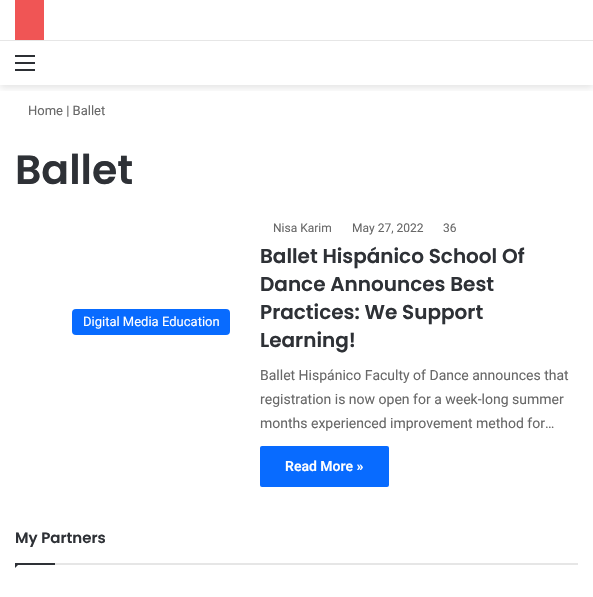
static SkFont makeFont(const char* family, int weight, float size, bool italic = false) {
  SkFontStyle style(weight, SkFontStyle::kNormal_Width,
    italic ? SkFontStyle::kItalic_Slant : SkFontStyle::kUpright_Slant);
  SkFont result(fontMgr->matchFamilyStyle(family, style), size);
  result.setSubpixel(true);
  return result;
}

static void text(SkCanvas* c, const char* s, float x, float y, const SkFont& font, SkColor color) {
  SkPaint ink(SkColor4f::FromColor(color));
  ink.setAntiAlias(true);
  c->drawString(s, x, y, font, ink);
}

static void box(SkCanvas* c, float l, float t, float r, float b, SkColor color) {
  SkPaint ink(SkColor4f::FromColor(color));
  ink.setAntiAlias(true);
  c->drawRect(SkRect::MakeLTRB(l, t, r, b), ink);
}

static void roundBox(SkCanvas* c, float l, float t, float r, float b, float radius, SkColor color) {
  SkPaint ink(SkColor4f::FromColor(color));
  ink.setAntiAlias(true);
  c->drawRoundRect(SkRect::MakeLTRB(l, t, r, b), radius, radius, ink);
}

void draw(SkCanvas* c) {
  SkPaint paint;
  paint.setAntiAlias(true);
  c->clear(0xffffffff);
  c->save();
  c->clipRect(SkRect::MakeLTRB(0, 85, 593, 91));
  paint.setColor(0x1a000000);
  paint.setMaskFilter(SkMaskFilter::MakeBlur(kNormal_SkBlurStyle, 3.5f));
  c->drawRect(SkRect::MakeLTRB(0, 44, 593, 88), paint);
  paint.setMaskFilter(nullptr);
  c->restore();
  box(c, 0, 40, 593, 41, 0xffe6e6e6);
  box(c, 15, 0, 44, 40, 0xfff05555);
  box(c, 15, 62, 35, 64, 0xff2c2f34);
  box(c, 15, 55, 35, 57, 0xff2c2f34);
  box(c, 15, 69, 35, 71, 0xff2c2f34);
  SkFont face1 = makeFont("Roboto", 400, 13);
  text(c, "Home | Ballet", 28, 115, face1, 0xff686868);
  SkFont face2 = makeFont("Poppins", 600, 41);
  text(c, "Ballet", 15, 184, face2, 0xff2e3136);
  roundBox(c, 72, 309, 230, 335, 4, 0xff086bff);
  text(c, "Digital Media Education", 83, 326, face1, 0xffffffff);
  SkFont face3 = makeFont("Roboto", 400, 12);
  text(c, "Nisa Karim", 273, 232, face3, 0xff686868);
  text(c, "May 27, 2022", 352, 232, face3, 0xff686868);
  text(c, "36", 443, 232, face3, 0xff686868);
  SkFont face4 = makeFont("Poppins", 600, 20);
  text(c, "Ballet Hispánico School Of", 260, 263, face4, 0xff2e3136);
  text(c, "Dance Announces Best", 260, 291, face4, 0xff2e3136);
  text(c, "Practices: We Support", 260, 319, face4, 0xff2e3136);
  text(c, "Learning!", 260, 347, face4, 0xff2e3136);
  SkFont face5 = makeFont("Roboto", 400, 14);
  text(c, "Ballet Hispánico Faculty of Dance announces that", 260, 380, face5, 0xff686868);
  text(c, "registration is now open for a week-long summer", 260, 404, face5, 0xff686868);
  text(c, "months experienced improvement method for…", 260, 428, face5, 0xff686868);
  roundBox(c, 260, 446, 389, 487, 2, 0xff086bff);
  SkFont face6 = makeFont("Roboto", 600, 14);
  text(c, "Read More »", 285, 471, face6, 0xffffffff);
  box(c, 55, 563, 578, 565, 0xffe6e6e6);
  SkFont face7 = makeFont("Poppins", 600, 15);
  text(c, "My Partners", 15, 543, face7, 0xff2e3136);
  paint.setColor(0xff2e3136);
  c->drawPath(SkPathBuilder().moveTo(15, 563).lineTo(20, 563).lineTo(15, 568).close().detach(), paint);
  box(c, 15, 563, 55, 565, 0xff2e3136);
}
